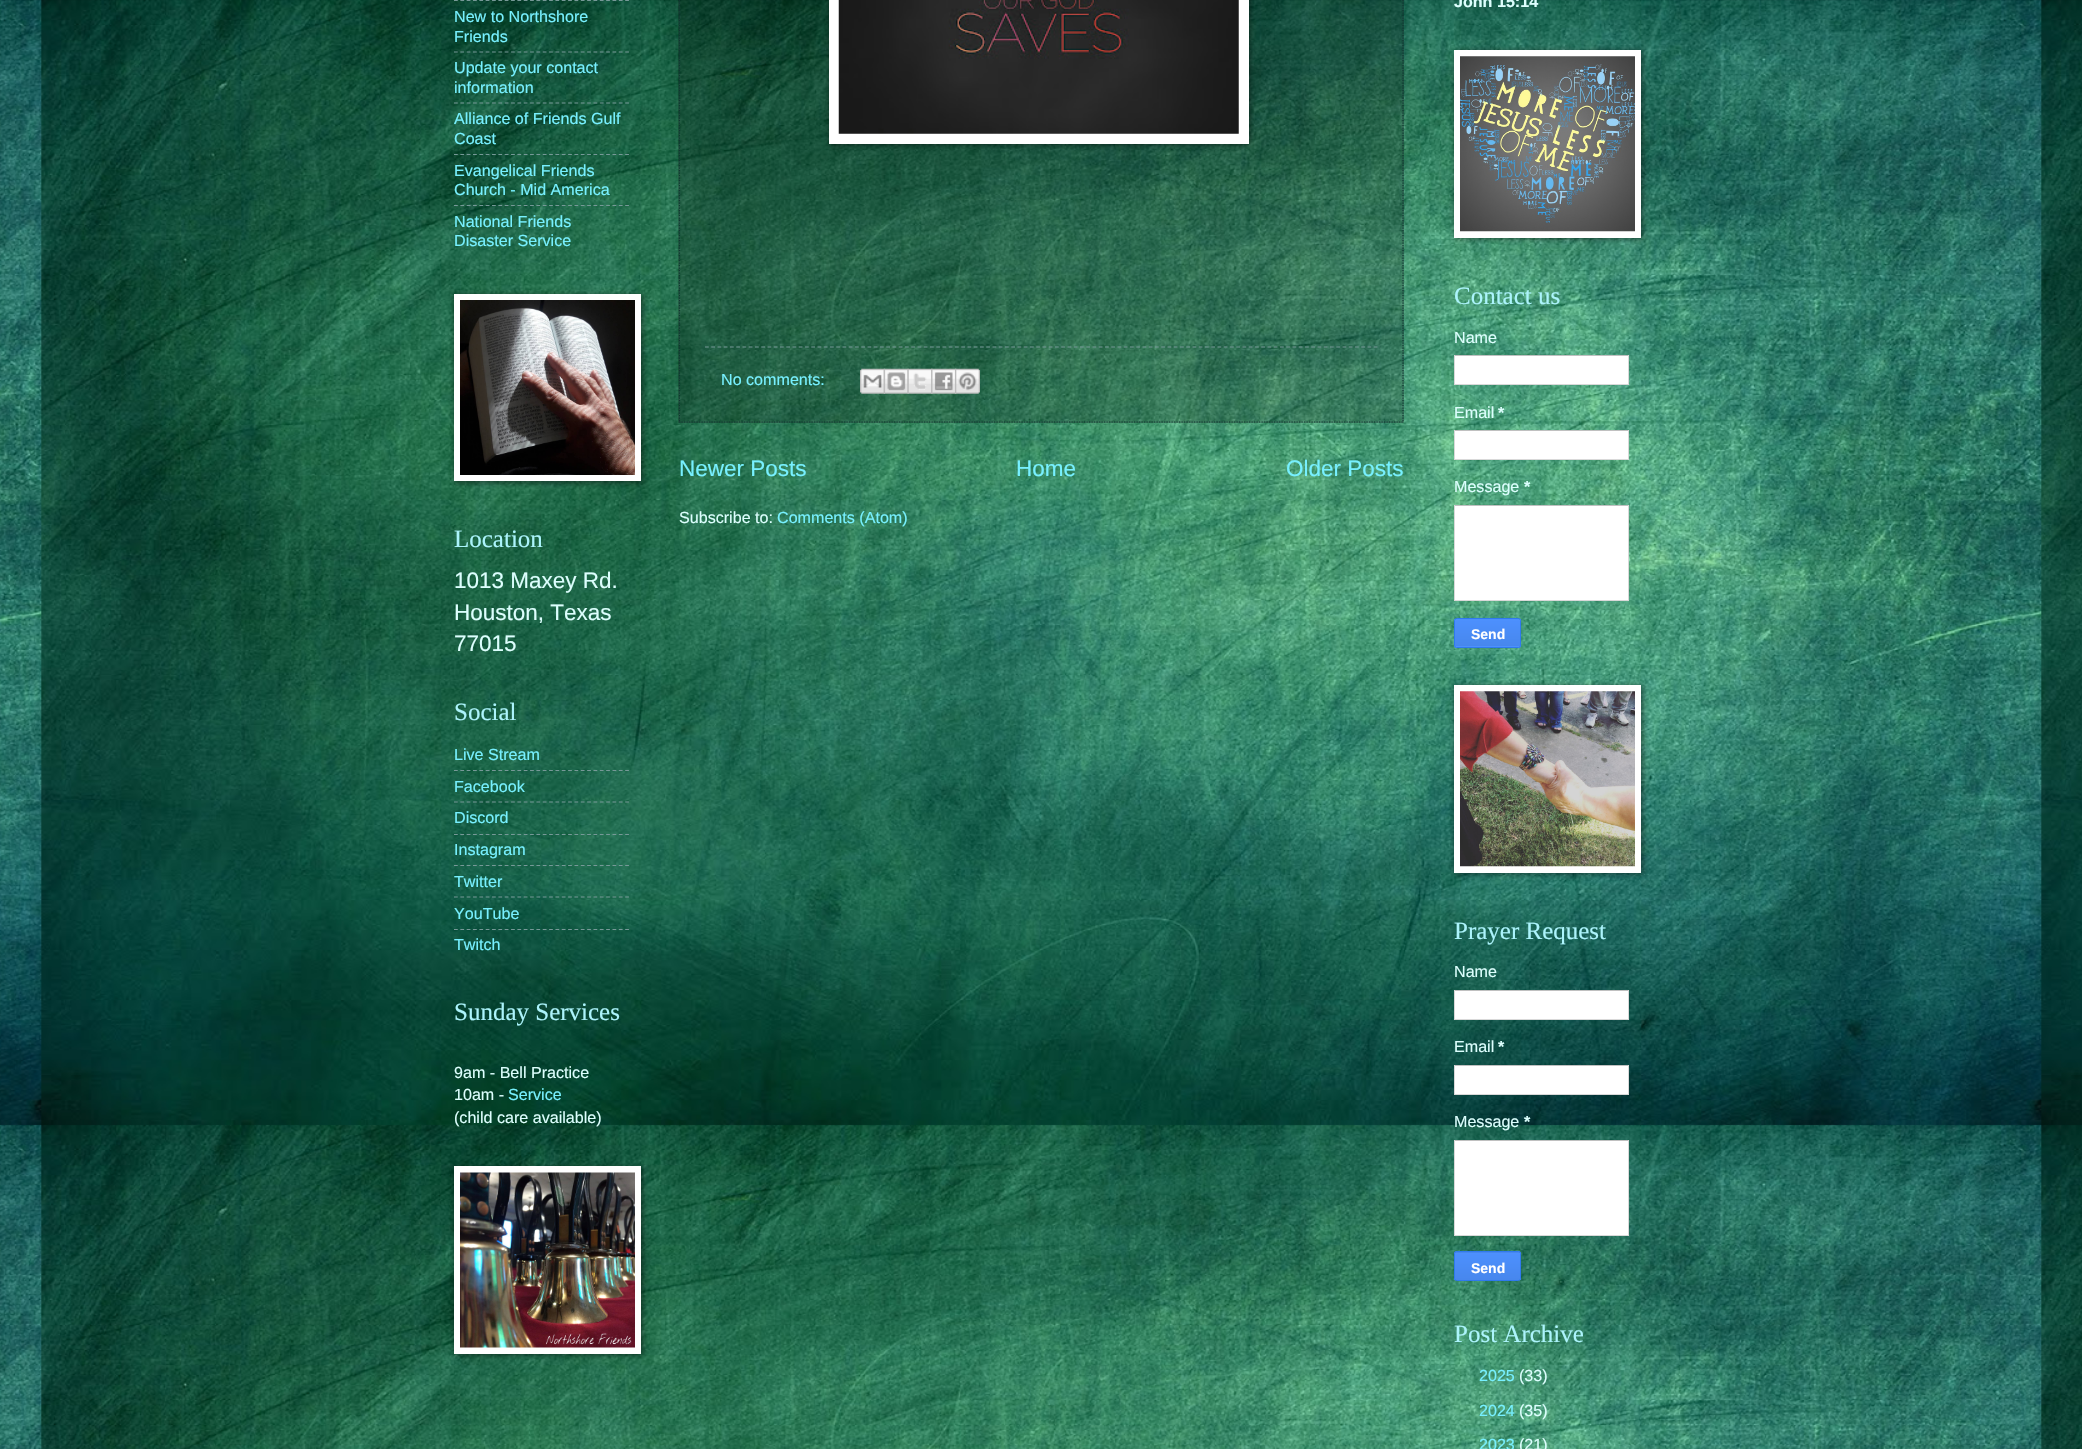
static SkFont makeFont(const char* family, int weight, float size, bool italic = false) {
  SkFontStyle style(weight, SkFontStyle::kNormal_Width,
    italic ? SkFontStyle::kItalic_Slant : SkFontStyle::kUpright_Slant);
  SkFont result(fontMgr->matchFamilyStyle(family, style), size);
  result.setSubpixel(true);
  return result;
}

static void text(SkCanvas* c, const char* s, float x, float y, const SkFont& font, SkColor color) {
  SkPaint ink(SkColor4f::FromColor(color));
  ink.setAntiAlias(true);
  c->drawString(s, x, y, font, ink);
}

static void box(SkCanvas* c, float l, float t, float r, float b, SkColor color) {
  SkPaint ink(SkColor4f::FromColor(color));
  ink.setAntiAlias(true);
  c->drawRect(SkRect::MakeLTRB(l, t, r, b), ink);
}

static void picture(SkCanvas* c, const char* path, float l, float t, float r, float b) {
  auto image = SkImages::DeferredFromEncodedData(SkData::MakeFromFileName(path));
  c->drawImageRect(image, SkRect::MakeLTRB(l, t, r, b), SkSamplingOptions());
}

void draw(SkCanvas* c) {
  SkPaint paint;
  paint.setAntiAlias(true);
  c->clear(0xffffffff);
  picture(c, "img_01.png", 0, 0, 2082, 1449);
  paint.setStyle(SkPaint::kStroke_Style);
  paint.setStrokeWidth(1.2f);
  paint.setColor(0xff779998);
  paint.setPathEffect(SkDashPathEffect::Make({{3.75f, 2.59f}}, 0));
  c->drawPath(SkPathBuilder().moveTo(454, 0.5f).lineTo(629, 0.5f).detach(), paint);
  paint.setPathEffect(nullptr);
  SkFont face1 = makeFont("Liberation Sans", 400, 16.1f);
  text(c, "New to Northshore", 454, 22, face1, 0xff77f0ff);
  text(c, "Friends", 454, 42, face1, 0xff77f0ff);
  paint.setPathEffect(SkDashPathEffect::Make({{3.75f, 2.59f}}, 0));
  c->drawPath(SkPathBuilder().moveTo(454, 52).lineTo(629, 52).detach(), paint);
  paint.setPathEffect(nullptr);
  text(c, "Update your contact", 454, 73, face1, 0xff77f0ff);
  text(c, "information", 454, 93, face1, 0xff77f0ff);
  paint.setPathEffect(SkDashPathEffect::Make({{3.75f, 2.59f}}, 0));
  c->drawPath(SkPathBuilder().moveTo(454, 103).lineTo(629, 103).detach(), paint);
  paint.setPathEffect(nullptr);
  text(c, "Alliance of Friends Gulf", 454, 124, face1, 0xff77f0ff);
  text(c, "Coast", 454, 144, face1, 0xff77f0ff);
  paint.setPathEffect(SkDashPathEffect::Make({{3.75f, 2.59f}}, 0));
  c->drawPath(SkPathBuilder().moveTo(454, 154.5f).lineTo(629, 154.5f).detach(), paint);
  paint.setPathEffect(nullptr);
  text(c, "Evangelical Friends", 454, 176, face1, 0xff77f0ff);
  text(c, "Church - Mid America", 454, 195, face1, 0xff77f0ff);
  paint.setPathEffect(SkDashPathEffect::Make({{3.75f, 2.59f}}, 0));
  c->drawPath(SkPathBuilder().moveTo(454, 205.5f).lineTo(629, 205.5f).detach(), paint);
  paint.setPathEffect(nullptr);
  text(c, "National Friends", 454, 227, face1, 0xff77f0ff);
  text(c, "Disaster Service", 454, 246, face1, 0xff77f0ff);
  paint.setStyle(SkPaint::kFill_Style);
  paint.setColor(0x80000000);
  paint.setMaskFilter(SkMaskFilter::MakeBlur(kNormal_SkBlurStyle, 3));
  c->drawRect(SkRect::MakeLTRB(455, 295, 643, 483), paint);
  paint.setMaskFilter(nullptr);
  box(c, 454, 294, 641, 481, 0xffffffff);
  picture(c, "img_02.png", 460, 300, 635, 475);
  SkFont face2 = makeFont("Liberation Serif", 400, 25);
  text(c, "Location", 454, 547, face2, 0xffacf4fc);
  SkFont face3 = makeFont("Liberation Sans", 400, 22.5f);
  text(c, "1013 Maxey Rd.", 454, 588, face3, 0xffddfffe);
  text(c, "Houston, Texas", 454, 620, face3, 0xffddfffe);
  text(c, "77015", 454, 651, face3, 0xffddfffe);
  text(c, "Social", 454, 720, face2, 0xffacf4fc);
  text(c, "Live Stream", 454, 760, face1, 0xff77f0ff);
  paint.setStyle(SkPaint::kStroke_Style);
  paint.setColor(0xff779998);
  paint.setPathEffect(SkDashPathEffect::Make({{3.75f, 2.59f}}, 0));
  c->drawPath(SkPathBuilder().moveTo(454, 770.5f).lineTo(629, 770.5f).detach(), paint);
  paint.setPathEffect(nullptr);
  text(c, "Facebook", 454, 792, face1, 0xff77f0ff);
  paint.setPathEffect(SkDashPathEffect::Make({{3.75f, 2.59f}}, 0));
  c->drawPath(SkPathBuilder().moveTo(454, 802).lineTo(629, 802).detach(), paint);
  paint.setPathEffect(nullptr);
  text(c, "Discord", 454, 823, face1, 0xff77f0ff);
  paint.setPathEffect(SkDashPathEffect::Make({{3.75f, 2.59f}}, 0));
  c->drawPath(SkPathBuilder().moveTo(454, 834.5f).lineTo(629, 834.5f).detach(), paint);
  paint.setPathEffect(nullptr);
  text(c, "Instagram", 454, 855, face1, 0xff77f0ff);
  paint.setPathEffect(SkDashPathEffect::Make({{3.75f, 2.59f}}, 0));
  c->drawPath(SkPathBuilder().moveTo(454, 865.5f).lineTo(629, 865.5f).detach(), paint);
  paint.setPathEffect(nullptr);
  text(c, "Twitter", 454, 887, face1, 0xff77f0ff);
  paint.setPathEffect(SkDashPathEffect::Make({{3.75f, 2.59f}}, 0));
  c->drawPath(SkPathBuilder().moveTo(454, 897).lineTo(629, 897).detach(), paint);
  paint.setPathEffect(nullptr);
  text(c, "YouTube", 454, 919, face1, 0xff77f0ff);
  paint.setPathEffect(SkDashPathEffect::Make({{3.75f, 2.59f}}, 0));
  c->drawPath(SkPathBuilder().moveTo(454, 929.5f).lineTo(629, 929.5f).detach(), paint);
  paint.setPathEffect(nullptr);
  text(c, "Twitch", 454, 950, face1, 0xff77f0ff);
  text(c, "Sunday Services", 454, 1020, face2, 0xffacf4fc);
  text(c, "9am - Bell Practice", 454, 1078, face1, 0xffddfffe);
  text(c, "10am -", 454, 1100, face1, 0xffddfffe);
  text(c, "Service", 508, 1100, face1, 0xff77f0ff);
  text(c, "(child care available)", 454, 1123, face1, 0xffddfffe);
  paint.setStyle(SkPaint::kFill_Style);
  paint.setColor(0x80000000);
  paint.setMaskFilter(SkMaskFilter::MakeBlur(kNormal_SkBlurStyle, 3));
  c->drawRect(SkRect::MakeLTRB(455, 1168, 643, 1355), paint);
  paint.setMaskFilter(nullptr);
  box(c, 454, 1166, 641, 1354, 0xffffffff);
  picture(c, "img_03.png", 460, 1172, 635, 1348);
  box(c, 678, 0, 1404, 423, 0x33000000);
  paint.setStyle(SkPaint::kStroke_Style);
  paint.setColor(0xff113332);
  paint.setPathEffect(SkDashPathEffect::Make({{1.25f, 1.25f}}, 0));
  c->drawPath(SkPathBuilder().moveTo(1403, -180).lineTo(1403, 422.5f).detach(), paint);
  paint.setPathEffect(nullptr);
  paint.setPathEffect(SkDashPathEffect::Make({{1.25f, 1.25f}}, 0));
  c->drawPath(SkPathBuilder().moveTo(679, 422).lineTo(1404, 422).detach(), paint);
  paint.setPathEffect(nullptr);
  paint.setPathEffect(SkDashPathEffect::Make({{1.25f, 1.25f}}, 0));
  c->drawPath(SkPathBuilder().moveTo(679.5f, -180).lineTo(679.5f, 422.5f).detach(), paint);
  paint.setPathEffect(nullptr);
  paint.setStyle(SkPaint::kFill_Style);
  paint.setColor(0x80000000);
  paint.setMaskFilter(SkMaskFilter::MakeBlur(kNormal_SkBlurStyle, 3));
  c->drawRect(SkRect::MakeLTRB(830, -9, 1250, 145), paint);
  paint.setMaskFilter(nullptr);
  box(c, 829, 0, 1249, 144, 0xffffffff);
  picture(c, "img_04.png", 838, 0, 1239, 134);
  paint.setStyle(SkPaint::kStroke_Style);
  paint.setColor(0xff779998);
  paint.setPathEffect(SkDashPathEffect::Make({{3.75f, 2.5f}}, 0));
  c->drawPath(SkPathBuilder().moveTo(705, 347).lineTo(1377.5f, 347).detach(), paint);
  paint.setPathEffect(nullptr);
  text(c, "No comments:", 721, 385, face1, 0xff77f0ff);
  picture(c, "img_05.png", 860, 368, 885, 394);
  picture(c, "img_06.png", 883, 368, 909, 394);
  picture(c, "img_07.png", 907, 368, 933, 394);
  picture(c, "img_08.png", 931, 368, 957, 394);
  picture(c, "img_09.png", 955, 368, 980, 394);
  text(c, "Newer Posts", 679, 476, face3, 0xff77f0ff);
  text(c, "Home", 1016, 476, face3, 0xff77f0ff);
  text(c, "Older Posts", 1286, 476, face3, 0xff77f0ff);
  text(c, "Subscribe to:", 679, 523, face1, 0xffddfffe);
  text(c, "Comments (Atom)", 777, 523, face1, 0xff77f0ff);
  SkFont face4 = makeFont("Liberation Sans", 700, 16.1f);
  text(c, "John 15:14", 1454, 7, face4, 0xffddfffe);
  paint.setStyle(SkPaint::kFill_Style);
  paint.setColor(0x80000000);
  paint.setMaskFilter(SkMaskFilter::MakeBlur(kNormal_SkBlurStyle, 3));
  c->drawRect(SkRect::MakeLTRB(1455, 51, 1643, 239), paint);
  paint.setMaskFilter(nullptr);
  box(c, 1454, 50, 1641, 238, 0xffffffff);
  picture(c, "img_10.png", 1460, 56, 1635, 232);
  text(c, "Contact us", 1454, 304, face2, 0xffacf4fc);
  text(c, "Name", 1454, 343, face1, 0xffddfffe);
  box(c, 1455, 356, 1628, 384, 0xffffffff);
  box(c, 1454, 355, 1629, 356, 0xffc0c0c0);
  box(c, 1628, 355, 1629, 385, 0xffd9d9d9);
  box(c, 1454, 384, 1629, 385, 0xffd9d9d9);
  box(c, 1454, 355, 1455, 385, 0xffd9d9d9);
  text(c, "Email", 1454, 418, face1, 0xffddfffe);
  text(c, "*", 1498, 418, face4, 0xffddfffe);
  box(c, 1455, 431, 1628, 459, 0xffffffff);
  box(c, 1454, 430, 1629, 431, 0xffc0c0c0);
  box(c, 1628, 430, 1629, 460, 0xffd9d9d9);
  box(c, 1454, 459, 1629, 460, 0xffd9d9d9);
  box(c, 1454, 430, 1455, 460, 0xffd9d9d9);
  text(c, "Message", 1454, 492, face1, 0xffddfffe);
  text(c, "*", 1524, 492, face4, 0xffddfffe);
  box(c, 1455, 506, 1628, 600, 0xffffffff);
  box(c, 1454, 505, 1629, 506, 0xffc0c0c0);
  box(c, 1628, 505, 1629, 601, 0xffd9d9d9);
  box(c, 1454, 600, 1629, 601, 0xffd9d9d9);
  box(c, 1454, 505, 1455, 601, 0xffd9d9d9);
  {
    const SkColor colors[] = {0xff4d90fe, 0xff4787ed};
    const float stops[] = {0, 1};
    const SkPoint ends[] = {{1488, 619}, {1488, 646}};
    paint.setShader(SkGradientShader::MakeLinear(ends, colors, stops, 2, SkTileMode::kClamp));
    paint.setAlpha(255);
  }
  c->drawRect(SkRect::MakeLTRB(1454, 619, 1521, 646), paint);
  c->save();
  c->clipPath(SkPathBuilder().moveTo(1456.5f, 618).lineTo(1518.5f, 618).cubicTo(1520, 618, 1521, 619, 1521, 620.5f).lineTo(1521, 645.5f).cubicTo(1521, 647, 1520, 648, 1518.5f, 648).lineTo(1456.5f, 648).cubicTo(1455, 648, 1454, 647, 1454, 645.5f).lineTo(1454, 620.5f).cubicTo(1454, 619, 1455, 618, 1456.5f, 618).close().detach(), true);
  {
    const SkColor colors[] = {0xff4d90fe, 0xff4787ed};
    const float stops[] = {0, 1};
    const SkPoint ends[] = {{1488, 646}, {1488, 674}};
    paint.setShader(SkGradientShader::MakeLinear(ends, colors, stops, 2, SkTileMode::kClamp));
    paint.setAlpha(255);
  }
  c->drawRect(SkRect::MakeLTRB(1454, 646, 1521, 648), paint);
  c->restore();
  paint.setStyle(SkPaint::kStroke_Style);
  paint.setStrokeWidth(1);
  paint.setShader(nullptr);
  paint.setColor(0xff3079ed);
  c->drawRoundRect(SkRect::MakeLTRB(1454.5f, 618.5f, 1520.5f, 647.5f), 2, 2, paint);
  SkFont face5 = makeFont("Liberation Sans", 700, 14);
  text(c, "Send", 1471, 639, face5, 0xffffffff);
  paint.setStyle(SkPaint::kFill_Style);
  paint.setColor(0x80000000);
  paint.setMaskFilter(SkMaskFilter::MakeBlur(kNormal_SkBlurStyle, 3));
  c->drawRect(SkRect::MakeLTRB(1455, 686, 1643, 874), paint);
  paint.setMaskFilter(nullptr);
  box(c, 1454, 685, 1641, 873, 0xffffffff);
  picture(c, "img_11.png", 1460, 691, 1635, 867);
  text(c, "Prayer Request", 1454, 939, face2, 0xffacf4fc);
  text(c, "Name", 1454, 977, face1, 0xffddfffe);
  box(c, 1455, 991, 1628, 1019, 0xffffffff);
  box(c, 1454, 990, 1629, 991, 0xffc0c0c0);
  box(c, 1628, 990, 1629, 1020, 0xffd9d9d9);
  box(c, 1454, 1019, 1629, 1020, 0xffd9d9d9);
  box(c, 1454, 990, 1455, 1020, 0xffd9d9d9);
  text(c, "Email", 1454, 1052, face1, 0xffddfffe);
  text(c, "*", 1498, 1052, face4, 0xffddfffe);
  box(c, 1455, 1066, 1628, 1094, 0xffffffff);
  box(c, 1454, 1065, 1629, 1066, 0xffc0c0c0);
  box(c, 1628, 1065, 1629, 1095, 0xffd9d9d9);
  box(c, 1454, 1094, 1629, 1095, 0xffd9d9d9);
  box(c, 1454, 1065, 1455, 1095, 0xffd9d9d9);
  text(c, "Message", 1454, 1127, face1, 0xffddfffe);
  text(c, "*", 1524, 1127, face4, 0xffddfffe);
  box(c, 1455, 1141, 1628, 1235, 0xffffffff);
  box(c, 1454, 1140, 1629, 1141, 0xffc0c0c0);
  box(c, 1628, 1140, 1629, 1236, 0xffd9d9d9);
  box(c, 1454, 1235, 1629, 1236, 0xffd9d9d9);
  box(c, 1454, 1140, 1455, 1236, 0xffd9d9d9);
  c->save();
  c->clipPath(SkPathBuilder().moveTo(1456.5f, 1251).lineTo(1518.5f, 1251).cubicTo(1520, 1251, 1521, 1252, 1521, 1253.5f).lineTo(1521, 1278.5f).cubicTo(1521, 1280, 1520, 1281, 1518.5f, 1281).lineTo(1456.5f, 1281).cubicTo(1455, 1281, 1454, 1280, 1454, 1278.5f).lineTo(1454, 1253.5f).cubicTo(1454, 1252, 1455, 1251, 1456.5f, 1251).close().detach(), true);
  {
    const SkColor colors[] = {0xff4d90fe, 0xff4787ed};
    const float stops[] = {0, 1};
    const SkPoint ends[] = {{1488, 1225}, {1488, 1253}};
    paint.setShader(SkGradientShader::MakeLinear(ends, colors, stops, 2, SkTileMode::kClamp));
    paint.setAlpha(255);
  }
  c->drawRect(SkRect::MakeLTRB(1454, 1251, 1521, 1253), paint);
  c->restore();
  {
    const SkColor colors[] = {0xff4d90fe, 0xff4787ed};
    const float stops[] = {0, 1};
    const SkPoint ends[] = {{1488, 1253}, {1488, 1280}};
    paint.setShader(SkGradientShader::MakeLinear(ends, colors, stops, 2, SkTileMode::kClamp));
    paint.setAlpha(255);
  }
  c->drawRect(SkRect::MakeLTRB(1454, 1253, 1521, 1280), paint);
  paint.setStyle(SkPaint::kStroke_Style);
  paint.setShader(nullptr);
  paint.setColor(0xff3079ed);
  c->drawRoundRect(SkRect::MakeLTRB(1454.5f, 1251.5f, 1520.5f, 1280.5f), 2, 2, paint);
  text(c, "Send", 1471, 1273, face5, 0xffffffff);
  text(c, "Post Archive", 1454, 1342, face2, 0xffacf4fc);
  text(c, "2025", 1479, 1381, face1, 0xff77f0ff);
  text(c, "(33)", 1519, 1381, face1, 0xffddfffe);
  text(c, "2024", 1479, 1416, face1, 0xff77f0ff);
  text(c, "(35)", 1519, 1416, face1, 0xffddfffe);
  text(c, "2023", 1479, 1450, face1, 0xff77f0ff);
  text(c, "(21)", 1519, 1450, face1, 0xffddfffe);
}
